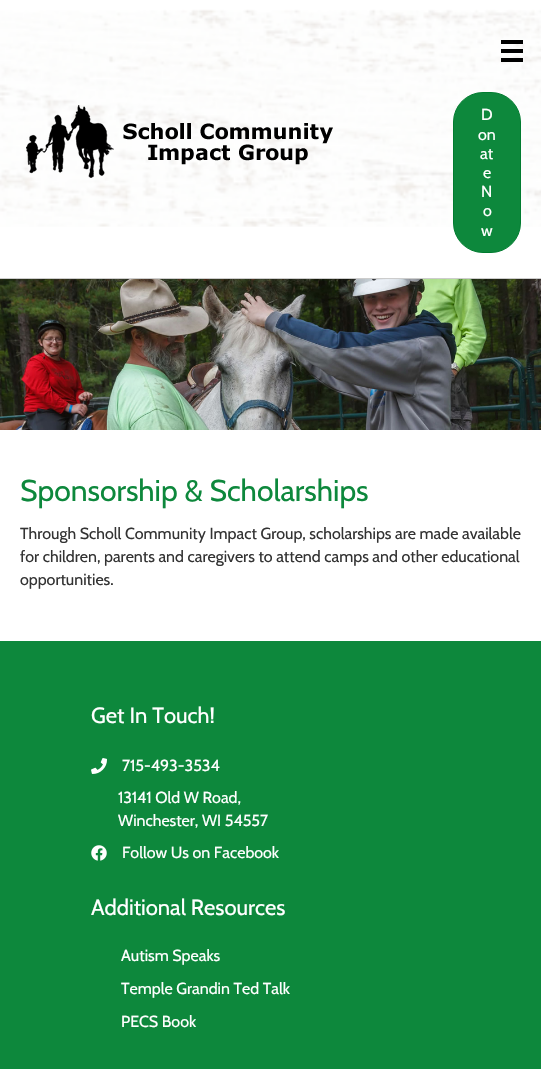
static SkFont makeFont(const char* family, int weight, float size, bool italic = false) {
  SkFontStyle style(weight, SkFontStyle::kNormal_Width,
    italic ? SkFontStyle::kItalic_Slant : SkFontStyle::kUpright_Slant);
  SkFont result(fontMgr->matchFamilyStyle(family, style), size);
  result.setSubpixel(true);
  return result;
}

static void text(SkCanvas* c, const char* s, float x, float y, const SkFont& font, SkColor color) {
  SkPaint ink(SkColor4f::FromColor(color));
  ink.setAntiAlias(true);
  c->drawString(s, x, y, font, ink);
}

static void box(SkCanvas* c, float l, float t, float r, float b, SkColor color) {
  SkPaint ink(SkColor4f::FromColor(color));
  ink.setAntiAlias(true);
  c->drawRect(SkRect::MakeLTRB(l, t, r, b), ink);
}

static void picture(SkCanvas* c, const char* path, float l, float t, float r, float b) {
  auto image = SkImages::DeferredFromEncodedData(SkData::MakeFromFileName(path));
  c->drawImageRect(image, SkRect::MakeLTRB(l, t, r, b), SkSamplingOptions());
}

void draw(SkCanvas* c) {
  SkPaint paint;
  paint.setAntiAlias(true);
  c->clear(0xffffffff);
  picture(c, "img_01.png", 0, 9, 541, 227);
  box(c, 0, 278, 541, 279, 0xffcccccc);
  picture(c, "img_02.png", 26, 105, 333, 178);
  box(c, 501, 40, 523, 44, 0xff000000);
  box(c, 501, 49, 523, 53, 0xff000000);
  box(c, 501, 58, 523, 62, 0xff000000);
  paint.setColor(0xff0d883c);
  c->drawRoundRect(SkRect::MakeLTRB(453.5f, 92.5f, 520.5f, 252.5f), 29.5f, 29.5f, paint);
  paint.setStyle(SkPaint::kStroke_Style);
  paint.setStrokeWidth(1);
  paint.setColor(0xff017c30);
  c->drawRoundRect(SkRect::MakeLTRB(453.5f, 92.5f, 520.5f, 252.5f), 29.5f, 29.5f, paint);
  SkFont face1 = makeFont("Cabin", 400, 16);
  text(c, "D", 481, 120, face1, 0xffffffff);
  text(c, "on", 478, 140, face1, 0xffffffff);
  text(c, "at", 480, 159, face1, 0xffffffff);
  text(c, "e", 483, 178, face1, 0xffffffff);
  text(c, "N", 481, 197, face1, 0xffffffff);
  text(c, "o", 483, 216, face1, 0xffffffff);
  text(c, "w", 481, 236, face1, 0xffffffff);
  picture(c, "img_03.png", 0, 279, 541, 430);
  SkFont face2 = makeFont("Cabin", 400, 30);
  text(c, "Sponsorship & Scholarships", 20, 501, face2, 0xff0d883c);
  text(c, "Through Scholl Community Impact Group, scholarships are made available", 20, 539, face1, 0xff333333);
  text(c, "for children, parents and caregivers to attend camps and other educational", 20, 562, face1, 0xff333333);
  text(c, "opportunities.", 20, 585, face1, 0xff333333);
  box(c, 0, 641, 541, 1069, 0xff0d883c);
  SkFont face3 = makeFont("Cabin", 400, 22);
  text(c, "Get In Touch!", 91, 723, face3, 0xffffffff);
  picture(c, "img_04.png", 91, 758, 107, 774);
  text(c, "715-493-3534", 122, 771, face1, 0xffffffff);
  text(c, "13141 Old W Road,", 118, 803, face1, 0xffffffff);
  text(c, "Winchester, WI 54557", 118, 826, face1, 0xffffffff);
  picture(c, "img_05.png", 91, 845, 107, 861);
  text(c, "Follow Us on Facebook", 122, 858, face1, 0xffffffff);
  text(c, "Additional Resources", 91, 915, face3, 0xffffffff);
  text(c, "Autism Speaks", 121, 961, face1, 0xffffffff);
  text(c, "Temple Grandin Ted Talk", 121, 994, face1, 0xffffffff);
  text(c, "PECS Book", 121, 1027, face1, 0xffffffff);
}
